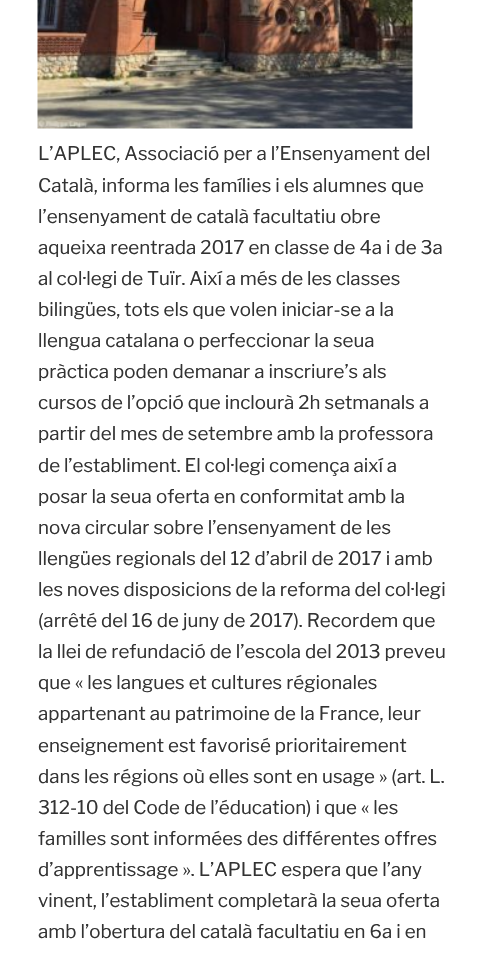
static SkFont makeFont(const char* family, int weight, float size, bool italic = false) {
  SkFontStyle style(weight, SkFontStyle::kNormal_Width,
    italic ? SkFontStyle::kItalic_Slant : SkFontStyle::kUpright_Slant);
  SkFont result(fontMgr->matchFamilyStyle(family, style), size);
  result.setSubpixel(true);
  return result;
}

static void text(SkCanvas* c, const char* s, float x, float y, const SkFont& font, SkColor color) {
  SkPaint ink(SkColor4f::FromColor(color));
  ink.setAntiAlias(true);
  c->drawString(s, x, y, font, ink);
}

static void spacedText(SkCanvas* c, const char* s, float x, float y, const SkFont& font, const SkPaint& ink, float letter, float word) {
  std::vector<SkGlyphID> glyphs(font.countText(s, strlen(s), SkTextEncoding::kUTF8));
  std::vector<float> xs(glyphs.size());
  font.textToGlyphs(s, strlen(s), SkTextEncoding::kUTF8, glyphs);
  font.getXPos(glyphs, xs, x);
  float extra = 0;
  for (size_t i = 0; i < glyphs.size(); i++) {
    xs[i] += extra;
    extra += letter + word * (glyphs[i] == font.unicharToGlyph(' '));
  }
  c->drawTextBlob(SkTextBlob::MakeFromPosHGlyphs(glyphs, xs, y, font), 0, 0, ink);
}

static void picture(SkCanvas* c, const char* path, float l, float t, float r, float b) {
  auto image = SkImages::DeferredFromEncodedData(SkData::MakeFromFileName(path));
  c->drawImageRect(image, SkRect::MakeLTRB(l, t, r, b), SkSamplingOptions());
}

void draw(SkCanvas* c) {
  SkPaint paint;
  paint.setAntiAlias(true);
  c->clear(0xffffffff);
  picture(c, "img_01.png", 37, 0, 413, 129);
  SkFont face1 = makeFont("Libre Franklin", 100, 18.75f);
  text(c, "L’APLEC, Associació per a l’Ensenyament del", 38, 160, face1, 0xff333333);
  text(c, "Català, informa les famílies i els alumnes que", 38, 192, face1, 0xff333333);
  text(c, "l’ensenyament de català facultatiu obre", 38, 223, face1, 0xff333333);
  text(c, "aqueixa reentrada 2017 en classe de 4a i de 3a", 38, 254, face1, 0xff333333);
  paint.setColor(0xff333333);
  spacedText(c, "al col·legi de Tuïr. Així a més de les classes", 38, 285, face1, paint, 0, -0.25f);
  text(c, "bilingües, tots els que volen iniciar-se a la", 38, 316, face1, 0xff333333);
  text(c, "llengua catalana o perfeccionar la seua", 38, 347, face1, 0xff333333);
  text(c, "pràctica poden demanar a inscriure’s als", 38, 378, face1, 0xff333333);
  text(c, "cursos de l’opció que inclourà 2h setmanals a", 38, 409, face1, 0xff333333);
  text(c, "partir del mes de setembre amb la professora", 38, 440, face1, 0xff333333);
  spacedText(c, "de l’establiment. El col·legi comença així a", 38, 472, face1, paint, 0, -0.25f);
  text(c, "posar la seua oferta en conformitat amb la", 38, 503, face1, 0xff333333);
  text(c, "nova circular sobre l’ensenyament de les", 38, 534, face1, 0xff333333);
  text(c, "llengües regionals del 12 d’abril de 2017 i amb", 38, 565, face1, 0xff333333);
  spacedText(c, "les noves disposicions de la reforma del col·legi", 38, 596, face1, paint, 0, -0.25f);
  text(c, "(arrêté del 16 de juny de 2017). Recordem que", 38, 627, face1, 0xff333333);
  text(c, "la llei de refundació de l’escola del 2013 preveu", 38, 658, face1, 0xff333333);
  text(c, "que « les langues et cultures régionales", 38, 689, face1, 0xff333333);
  text(c, "appartenant au patrimoine de la France, leur", 38, 720, face1, 0xff333333);
  text(c, "enseignement est favorisé prioritairement", 38, 752, face1, 0xff333333);
  text(c, "dans les régions où elles sont en usage » (art. L.", 38, 783, face1, 0xff333333);
  text(c, "312-10 del Code de l’éducation) i que « les", 38, 814, face1, 0xff333333);
  text(c, "familles sont informées des différentes offres", 38, 845, face1, 0xff333333);
  text(c, "d’apprentissage ». L’APLEC espera que l’any", 38, 876, face1, 0xff333333);
  text(c, "vinent, l’establiment completarà la seua oferta", 38, 907, face1, 0xff333333);
  text(c, "amb l’obertura del català facultatiu en 6a i en", 38, 938, face1, 0xff333333);
}
